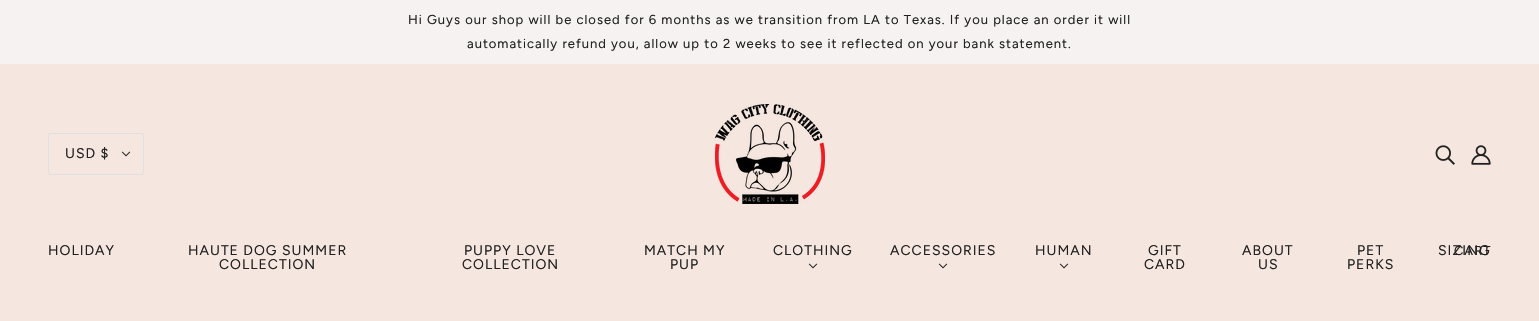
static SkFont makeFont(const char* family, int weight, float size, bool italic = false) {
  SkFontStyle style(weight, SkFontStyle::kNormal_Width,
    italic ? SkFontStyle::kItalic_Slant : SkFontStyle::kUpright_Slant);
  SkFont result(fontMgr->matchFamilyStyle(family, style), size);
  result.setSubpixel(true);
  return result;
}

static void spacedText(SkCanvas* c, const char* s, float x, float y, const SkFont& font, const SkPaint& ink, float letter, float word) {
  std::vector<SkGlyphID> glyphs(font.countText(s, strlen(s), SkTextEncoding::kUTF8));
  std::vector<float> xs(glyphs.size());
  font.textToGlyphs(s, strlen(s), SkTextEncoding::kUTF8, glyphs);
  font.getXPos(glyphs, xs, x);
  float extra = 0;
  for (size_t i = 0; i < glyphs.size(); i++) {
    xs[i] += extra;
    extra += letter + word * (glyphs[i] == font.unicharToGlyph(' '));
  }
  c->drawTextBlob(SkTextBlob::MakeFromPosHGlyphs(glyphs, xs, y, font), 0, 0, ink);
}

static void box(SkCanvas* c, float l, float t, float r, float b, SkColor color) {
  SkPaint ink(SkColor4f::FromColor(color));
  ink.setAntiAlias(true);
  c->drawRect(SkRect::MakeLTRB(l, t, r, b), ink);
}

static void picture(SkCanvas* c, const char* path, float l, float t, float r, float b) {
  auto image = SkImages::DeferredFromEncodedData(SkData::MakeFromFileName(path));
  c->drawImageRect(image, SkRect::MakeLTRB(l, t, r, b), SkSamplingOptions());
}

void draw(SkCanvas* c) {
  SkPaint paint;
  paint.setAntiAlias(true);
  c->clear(0xfff5e7e0);
  box(c, 0, 0, 1539, 64, 0xfff7f2f2);
  SkFont face1 = makeFont("Figtree", 400, 13);
  paint.setColor(0xff212121);
  spacedText(c, "Hi Guys our shop will be closed for 6 months as we transition from LA to Texas. If you place an order it will", 408, 24, face1, paint, 1, 0);
  spacedText(c, "automatically refund you, allow up to 2 weeks to see it reflected on your bank statement.", 467, 48, face1, paint, 1, 0);
  paint.setStyle(SkPaint::kStroke_Style);
  paint.setStrokeWidth(1);
  paint.setColor(0xffe0e0e0);
  c->drawRoundRect(SkRect::MakeLTRB(48.5f, 133.5f, 143.5f, 174.5f), 1.5f, 1.5f, paint);
  SkFont face2 = makeFont("Figtree", 400, 14);
  paint.setStyle(SkPaint::kFill_Style);
  paint.setColor(0xff212121);
  spacedText(c, "USD $", 65, 158, face2, paint, 1, 0);
  picture(c, "img_01.png", 121, 151, 131, 157);
  picture(c, "img_02.png", 715, 104, 825, 204);
  picture(c, "img_03.png", 1435, 145, 1455, 165);
  picture(c, "img_04.png", 1471, 145, 1491, 165);
  spacedText(c, "HOLIDAY", 48, 255, face2, paint, 1, 0);
  spacedText(c, "HAUTE DOG SUMMER", 188, 255, face2, paint, 1, 0);
  spacedText(c, "COLLECTION", 219, 269, face2, paint, 1, 0);
  spacedText(c, "PUPPY LOVE", 464, 255, face2, paint, 1, 0);
  spacedText(c, "COLLECTION", 462, 269, face2, paint, 1, 0);
  spacedText(c, "MATCH MY", 644, 255, face2, paint, 1, 0);
  spacedText(c, "PUP", 670, 269, face2, paint, 1, 0);
  spacedText(c, "CLOTHING", 773, 255, face2, paint, 1, 0);
  picture(c, "img_01.png", 808, 263, 818, 269);
  spacedText(c, "ACCESSORIES", 890, 255, face2, paint, 1, 0);
  picture(c, "img_01.png", 938, 263, 948, 269);
  spacedText(c, "HUMAN", 1035, 255, face2, paint, 1, 0);
  picture(c, "img_01.png", 1059, 263, 1069, 269);
  spacedText(c, "GIFT", 1148, 255, face2, paint, 1, 0);
  spacedText(c, "CARD", 1144, 269, face2, paint, 1, 0);
  spacedText(c, "ABOUT", 1242, 255, face2, paint, 1, 0);
  spacedText(c, "US", 1258, 269, face2, paint, 1, 0);
  spacedText(c, "PET", 1357, 255, face2, paint, 1, 0);
  spacedText(c, "PERKS", 1347, 269, face2, paint, 1, 0);
  spacedText(c, "SIZING", 1438, 255, face2, paint, 1, 0);
  spacedText(c, "CART", 1454, 255, face1, paint, 1, 0);
}
